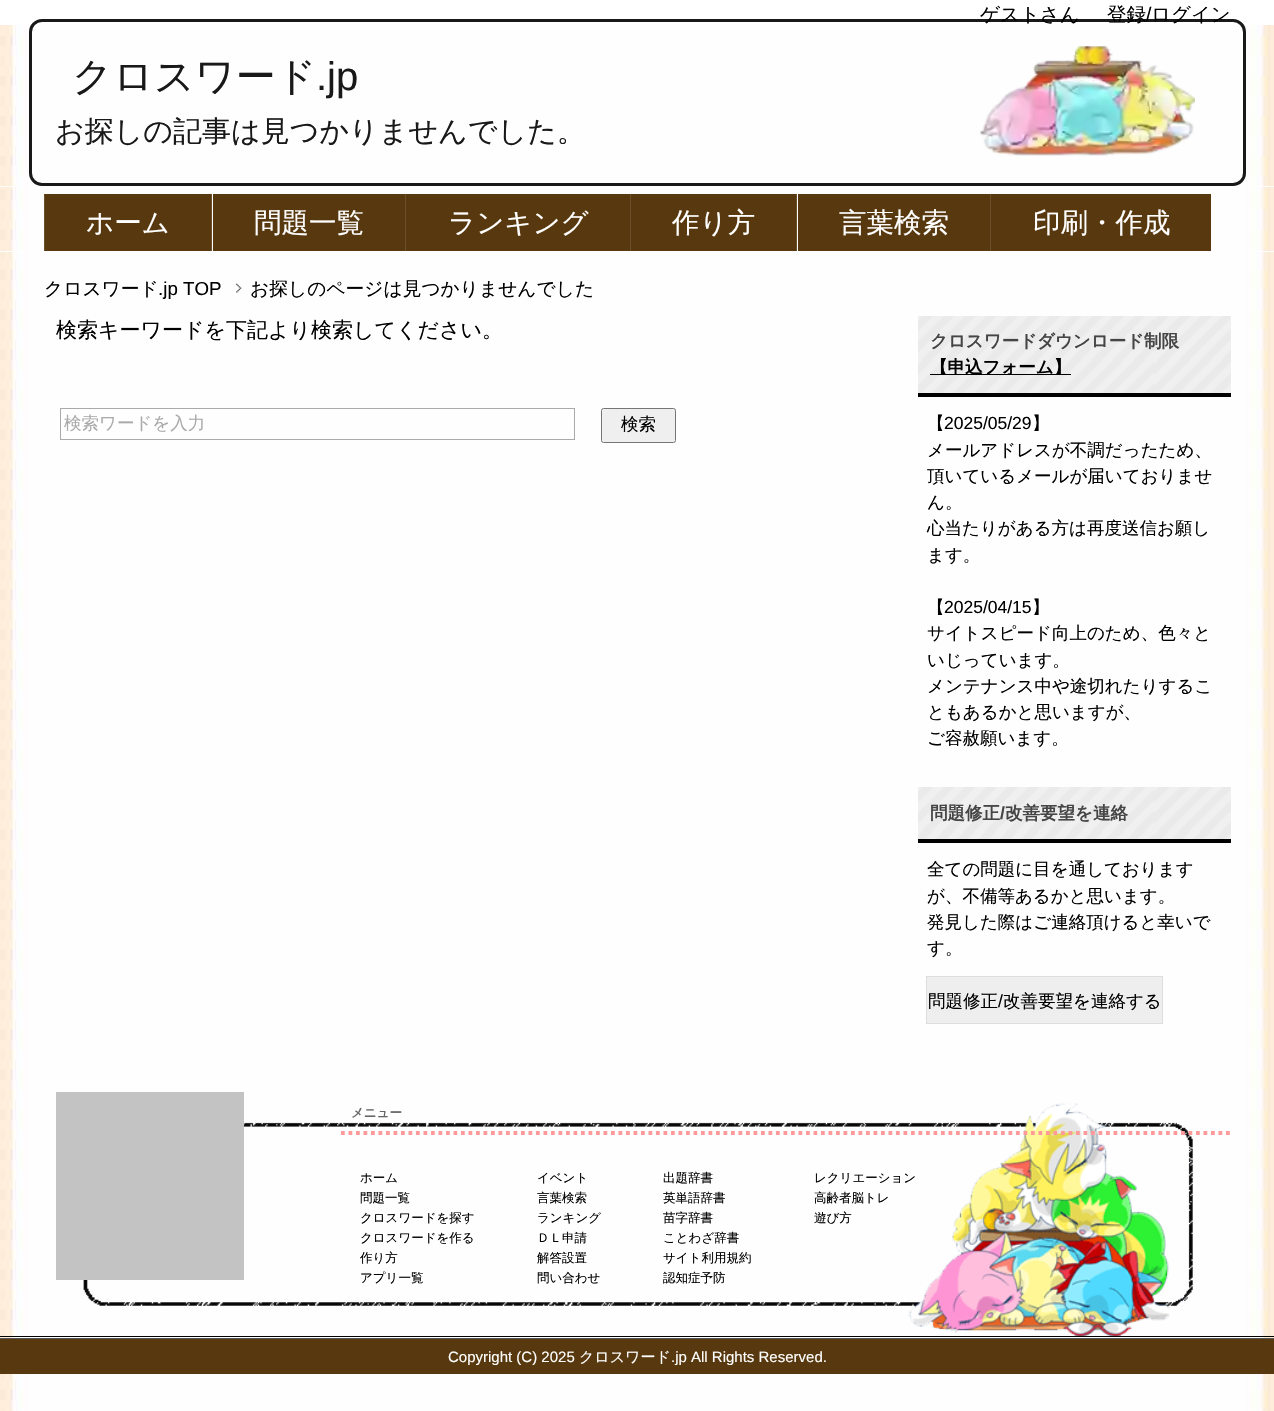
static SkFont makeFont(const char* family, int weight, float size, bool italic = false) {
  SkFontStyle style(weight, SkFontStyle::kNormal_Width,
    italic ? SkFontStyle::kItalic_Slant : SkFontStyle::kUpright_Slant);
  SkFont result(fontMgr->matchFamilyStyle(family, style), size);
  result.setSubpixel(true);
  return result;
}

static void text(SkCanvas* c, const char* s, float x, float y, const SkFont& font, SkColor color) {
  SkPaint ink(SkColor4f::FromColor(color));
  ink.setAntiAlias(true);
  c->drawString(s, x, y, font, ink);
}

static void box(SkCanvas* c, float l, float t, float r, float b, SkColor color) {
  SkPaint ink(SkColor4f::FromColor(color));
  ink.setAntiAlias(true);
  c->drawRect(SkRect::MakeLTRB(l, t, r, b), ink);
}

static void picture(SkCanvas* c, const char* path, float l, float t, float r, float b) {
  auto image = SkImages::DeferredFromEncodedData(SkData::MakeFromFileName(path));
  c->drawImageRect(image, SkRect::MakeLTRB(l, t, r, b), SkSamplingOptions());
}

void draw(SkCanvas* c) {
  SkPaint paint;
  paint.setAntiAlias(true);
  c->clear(0xffffffff);
  picture(c, "img_01.png", 0, 187, 1274, 1411);
  picture(c, "img_02.png", 0, 25, 1274, 187);
  SkFont face1 = makeFont("WenQuanYi Zen Hei", 500, 19.5f);
  text(c, "ゲストさん", 980, 21, face1, 0xff000000);
  text(c, "登録", 1107, 21, face1, 0xff000000);
  SkFont face2 = makeFont("Liberation Sans", 400, 19.5f);
  text(c, "/", 1146, 21, face2, 0xff000000);
  text(c, "ログイン", 1151, 21, face1, 0xff000000);
  picture(c, "img_03.png", 980, 46, 1195, 156);
  paint.setStyle(SkPaint::kStroke_Style);
  paint.setStrokeWidth(3);
  paint.setColor(0xe6000000);
  c->drawRoundRect(SkRect::MakeLTRB(30.5f, 20.5f, 1244.5f, 184.5f), 11.5f, 11.5f, paint);
  SkFont face3 = makeFont("WenQuanYi Zen Hei", 500, 40);
  text(c, "クロスワード", 72, 90, face3, 0xff191919);
  SkFont face4 = makeFont("Liberation Sans", 400, 40);
  text(c, ".jp", 316, 90, face4, 0xff191919);
  SkFont face5 = makeFont("WenQuanYi Zen Hei", 500, 29);
  text(c, "お探しの記事は見つかりませんでした。", 55, 141, face5, 0xff191919);
  box(c, 0, 251, 1274, 252, 0xffffffff);
  box(c, 44, 194, 45, 251, 0xff6b4f2a);
  box(c, 45, 194, 211, 251, 0xff58380e);
  SkFont face6 = makeFont("WenQuanYi Zen Hei", 500, 27.5f);
  text(c, "ホーム", 86, 232, face6, 0xffffffff);
  box(c, 211, 194, 212, 251, 0xff6b4f2a);
  box(c, 213, 194, 405, 251, 0xff58380e);
  text(c, "問題一覧", 254, 232, face6, 0xffffffff);
  box(c, 405, 194, 406, 251, 0xff6b4f2a);
  box(c, 406, 194, 630, 251, 0xff58380e);
  text(c, "ランキング", 448, 232, face6, 0xffffffff);
  box(c, 630, 194, 631, 251, 0xff6b4f2a);
  box(c, 631, 194, 796, 251, 0xff58380e);
  text(c, "作り方", 672, 232, face6, 0xffffffff);
  box(c, 796, 194, 797, 251, 0xff6b4f2a);
  box(c, 798, 194, 990, 251, 0xff58380e);
  text(c, "言葉検索", 839, 232, face6, 0xffffffff);
  box(c, 990, 194, 991, 251, 0xff6b4f2a);
  box(c, 991, 194, 1211, 251, 0xff58380e);
  text(c, "印刷・作成", 1033, 232, face6, 0xffffffff);
  SkFont face7 = makeFont("WenQuanYi Zen Hei", 500, 18.75f);
  text(c, "クロスワード", 44, 295, face7, 0xff000000);
  SkFont face8 = makeFont("Liberation Sans", 400, 18.75f);
  text(c, ".jp TOP", 158, 295, face8, 0xff000000);
  picture(c, "img_04.png", 236, 283, 242, 293);
  text(c, "お探しのページは見つかりませんでした", 250, 295, face7, 0xff000000);
  SkFont face9 = makeFont("WenQuanYi Zen Hei", 500, 21);
  text(c, "検索キーワードを下記より検索してください。", 56, 337, face9, 0xff000000);
  paint.setStrokeWidth(1);
  paint.setColor(0xffaaaaaa);
  c->drawRect(SkRect::MakeLTRB(60.5f, 408.5f, 574.5f, 439.5f), paint);
  SkFont face10 = makeFont("WenQuanYi Zen Hei", 500, 17.5f);
  text(c, "検索ワードを入力", 64, 429, face10, 0xffaaaaaa);
  paint.setStyle(SkPaint::kFill_Style);
  paint.setColor(0xffefefef);
  c->drawRoundRect(SkRect::MakeLTRB(601.5f, 408.5f, 675.5f, 442.5f), 2, 2, paint);
  paint.setStyle(SkPaint::kStroke_Style);
  paint.setColor(0xff767676);
  c->drawRoundRect(SkRect::MakeLTRB(601.5f, 408.5f, 675.5f, 442.5f), 2, 2, paint);
  text(c, "検索", 621, 430, face10, 0xff000000);
  box(c, 918, 316, 1231, 393, 0xffebeaea);
  picture(c, "img_05.png", 918, 316, 1231, 393);
  box(c, 918, 393, 1231, 397, 0xff000000);
  SkFont face11 = makeFont("WenQuanYi Zen Hei", 700, 17.5f);
  text(c, "クロスワードダウンロード制限", 930, 347, face11, 0xff454545);
  box(c, 930, 374, 1071, 375, 0xff000000);
  text(c, "【申込フォーム】", 930, 373, face11, 0xff000000);
  text(c, "【", 927, 429, face10, 0xff000000);
  SkFont face12 = makeFont("Liberation Sans", 400, 17.5f);
  text(c, "2025/05/29", 944, 429, face12, 0xff000000);
  text(c, "】", 1032, 429, face10, 0xff000000);
  text(c, "メールアドレスが不調だったため、", 927, 456, face10, 0xff000000);
  text(c, "頂いているメールが届いておりませ", 927, 482, face10, 0xff000000);
  text(c, "ん。", 927, 508, face10, 0xff000000);
  text(c, "心当たりがある方は再度送信お願し", 927, 534, face10, 0xff000000);
  text(c, "ます。", 927, 561, face10, 0xff000000);
  text(c, "【", 927, 613, face10, 0xff000000);
  text(c, "2025/04/15", 944, 613, face12, 0xff000000);
  text(c, "】", 1032, 613, face10, 0xff000000);
  text(c, "サイトスピード向上のため、色々と", 927, 639, face10, 0xff000000);
  text(c, "いじっています。", 927, 666, face10, 0xff000000);
  text(c, "メンテナンス中や途切れたりするこ", 927, 692, face10, 0xff000000);
  text(c, "ともあるかと思いますが、", 927, 718, face10, 0xff000000);
  text(c, "ご容赦願います。", 927, 744, face10, 0xff000000);
  box(c, 918, 787, 1231, 839, 0xffebeaea);
  picture(c, "img_06.png", 918, 787, 1231, 839);
  box(c, 918, 839, 1231, 843, 0xff000000);
  text(c, "問題修正", 930, 819, face11, 0xff454545);
  SkFont face13 = makeFont("Liberation Sans", 700, 17.5f);
  text(c, "/", 1000, 819, face13, 0xff454545);
  text(c, "改善要望を連絡", 1005, 819, face11, 0xff454545);
  text(c, "全ての問題に目を通しております", 927, 875, face10, 0xff000000);
  text(c, "が、不備等あるかと思います。", 927, 902, face10, 0xff000000);
  text(c, "発見した際はご連絡頂けると幸いで", 927, 928, face10, 0xff000000);
  text(c, "す。", 927, 954, face10, 0xff000000);
  paint.setStyle(SkPaint::kFill_Style);
  paint.setColor(0xffeeeeee);
  c->drawRect(SkRect::MakeLTRB(926.5f, 976.5f, 1162.5f, 1023.5f), paint);
  paint.setStyle(SkPaint::kStroke_Style);
  paint.setColor(0xffdddddd);
  c->drawRect(SkRect::MakeLTRB(926.5f, 976.5f, 1162.5f, 1023.5f), paint);
  text(c, "問題修正", 928, 1007, face10, 0xff000000);
  text(c, "/", 998, 1007, face12, 0xff000000);
  text(c, "改善要望を連絡する", 1003, 1007, face10, 0xff000000);
  picture(c, "img_07.png", 83, 1103, 1193, 1336);
  box(c, 0, 1336, 1274, 1337, 0xff000000);
  box(c, 56, 1092, 244, 1280, 0xffc3c3c3);
  paint.setStrokeWidth(3.8f);
  paint.setColor(0xffff999a);
  paint.setPathEffect(SkDashPathEffect::Make({{3.75f, 3.75f}}, 0));
  c->drawPath(SkPathBuilder().moveTo(341, 1133).lineTo(1231, 1133).detach(), paint);
  paint.setPathEffect(nullptr);
  SkFont face14 = makeFont("WenQuanYi Zen Hei", 700, 12.5f);
  text(c, "メニュー", 351, 1117, face14, 0xff666666);
  SkFont face15 = makeFont("WenQuanYi Zen Hei", 500, 12.5f);
  text(c, "ホーム", 360, 1182, face15, 0xff000000);
  text(c, "問題一覧", 360, 1202, face15, 0xff000000);
  text(c, "クロスワードを探す", 360, 1222, face15, 0xff000000);
  text(c, "クロスワードを作る", 360, 1242, face15, 0xff000000);
  text(c, "作り方", 360, 1262, face15, 0xff000000);
  text(c, "アプリ一覧", 360, 1282, face15, 0xff000000);
  text(c, "イベント", 537, 1182, face15, 0xff000000);
  text(c, "言葉検索", 537, 1202, face15, 0xff000000);
  text(c, "ランキング", 537, 1222, face15, 0xff000000);
  text(c, "ＤＬ申請", 537, 1242, face15, 0xff000000);
  text(c, "解答設置", 537, 1262, face15, 0xff000000);
  text(c, "問い合わせ", 537, 1282, face15, 0xff000000);
  text(c, "出題辞書", 663, 1182, face15, 0xff000000);
  text(c, "英単語辞書", 663, 1202, face15, 0xff000000);
  text(c, "苗字辞書", 663, 1222, face15, 0xff000000);
  text(c, "ことわざ辞書", 663, 1242, face15, 0xff000000);
  text(c, "サイト利用規約", 663, 1262, face15, 0xff000000);
  text(c, "認知症予防", 663, 1282, face15, 0xff000000);
  text(c, "レクリエーション", 814, 1182, face15, 0xff000000);
  text(c, "高齢者脳トレ", 814, 1202, face15, 0xff000000);
  text(c, "遊び方", 814, 1222, face15, 0xff000000);
  box(c, 0, 1339, 1274, 1374, 0xff58380e);
  box(c, 0, 1338, 1274, 1339, 0xff555555);
  SkFont face16 = makeFont("Liberation Sans", 400, 15);
  text(c, "Copyright (C) 2025", 448, 1362, face16, 0xffffffff);
  SkFont face17 = makeFont("WenQuanYi Zen Hei", 500, 15);
  text(c, "クロスワード", 579, 1362, face17, 0xffffffff);
  text(c, ".jp All Rights Reserved.", 671, 1362, face16, 0xffffffff);
}
